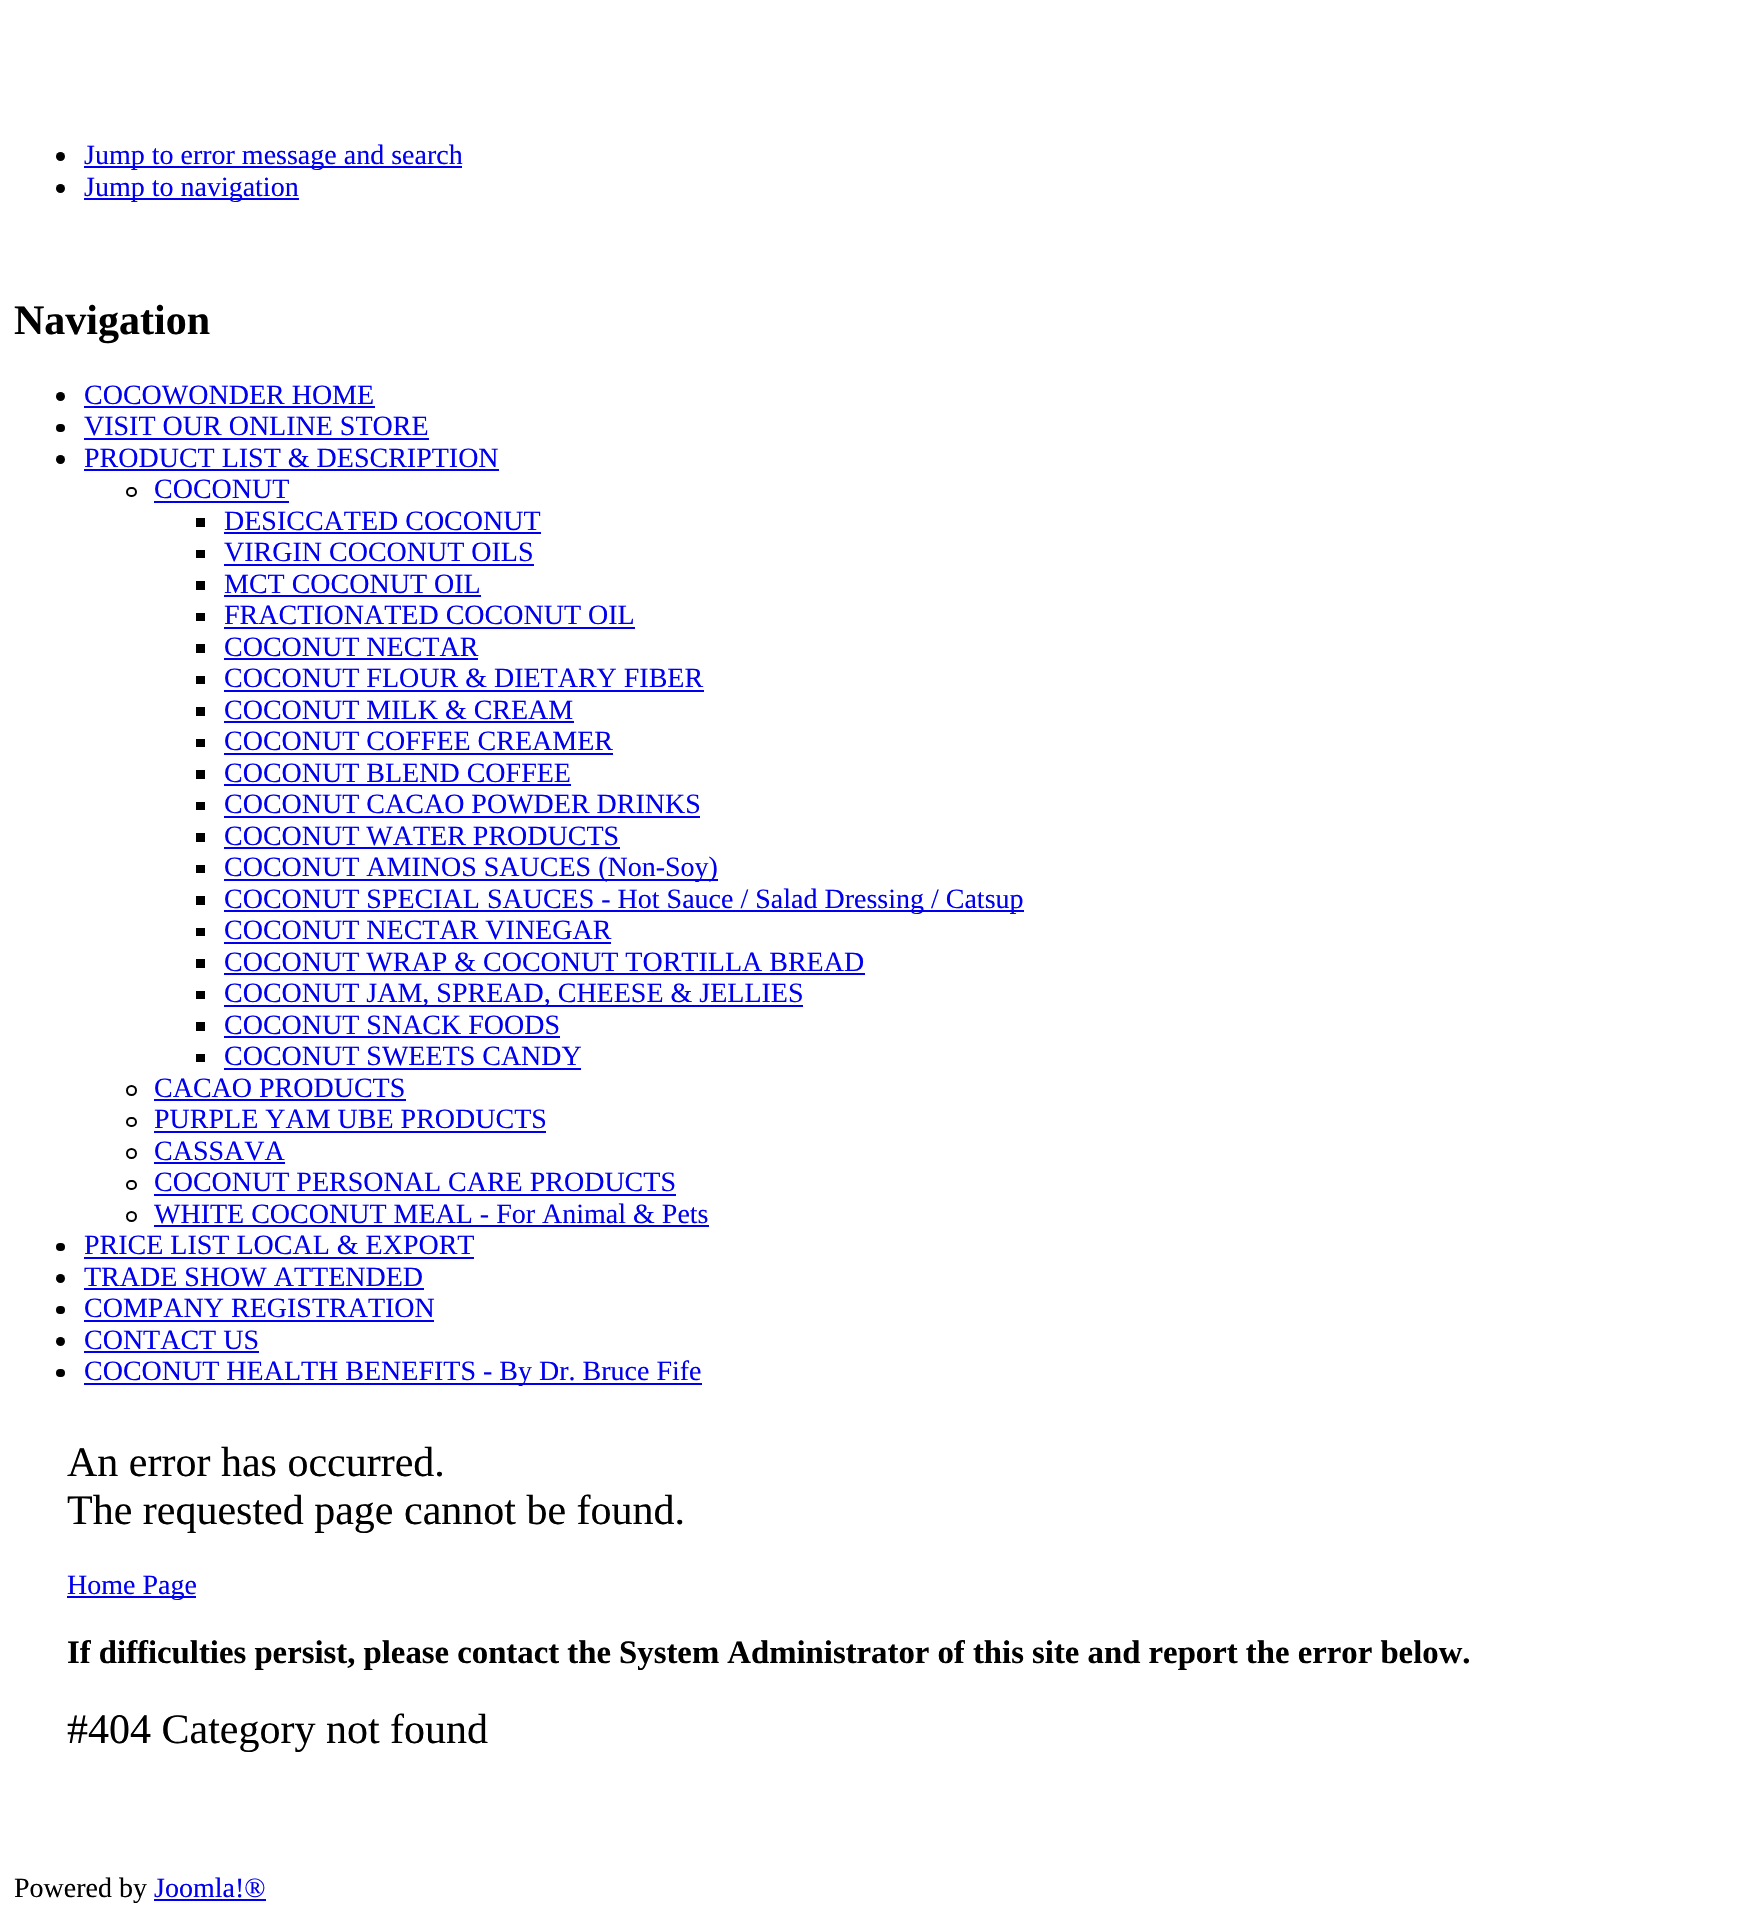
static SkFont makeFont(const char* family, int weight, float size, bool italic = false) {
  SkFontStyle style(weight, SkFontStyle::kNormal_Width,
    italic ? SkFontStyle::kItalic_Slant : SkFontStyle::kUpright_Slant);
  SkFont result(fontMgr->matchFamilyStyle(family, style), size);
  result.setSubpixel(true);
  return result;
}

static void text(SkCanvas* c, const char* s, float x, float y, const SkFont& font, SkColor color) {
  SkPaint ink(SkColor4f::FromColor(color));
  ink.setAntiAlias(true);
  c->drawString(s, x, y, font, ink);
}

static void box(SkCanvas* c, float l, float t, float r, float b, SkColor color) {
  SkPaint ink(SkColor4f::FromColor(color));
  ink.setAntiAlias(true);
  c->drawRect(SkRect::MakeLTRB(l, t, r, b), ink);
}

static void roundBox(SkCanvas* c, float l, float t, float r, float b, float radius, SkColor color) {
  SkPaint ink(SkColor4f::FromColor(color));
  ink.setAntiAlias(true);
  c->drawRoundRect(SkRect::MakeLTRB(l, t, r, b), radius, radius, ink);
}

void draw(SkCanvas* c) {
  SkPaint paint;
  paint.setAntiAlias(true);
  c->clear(0xffffffff);
  paint.setColor(0xff000000);
  c->drawCircle(60.5f, 156.5f, 4.5f, paint);
  box(c, 84, 166, 462, 168, 0xff0000ee);
  SkFont face1 = makeFont("Liberation Serif", 400, 28);
  text(c, "Jump to error message and search", 84, 164, face1, 0xff0000ee);
  c->drawCircle(60.5f, 188.5f, 4.5f, paint);
  box(c, 84, 198, 299, 200, 0xff0000ee);
  text(c, "Jump to navigation", 84, 196, face1, 0xff0000ee);
  SkFont face2 = makeFont("Liberation Serif", 700, 42);
  text(c, "Navigation", 14, 334, face2, 0xff000000);
  c->drawCircle(60.5f, 396.5f, 4.5f, paint);
  text(c, "COCOWONDER HOME", 84, 404, face1, 0xff0000ee);
  box(c, 84, 406, 375, 408, 0xff0000ee);
  roundBox(c, 56, 424, 65, 432, 4, 0xff000000);
  text(c, "VISIT OUR ONLINE STORE", 84, 435, face1, 0xff0000ee);
  box(c, 84, 438, 429, 440, 0xff0000ee);
  c->drawCircle(60.5f, 459.5f, 4.5f, paint);
  text(c, "PRODUCT LIST & DESCRIPTION", 84, 467, face1, 0xff0000ee);
  box(c, 84, 469, 499, 471, 0xff0000ee);
  paint.setStyle(SkPaint::kStroke_Style);
  paint.setStrokeWidth(2);
  c->drawRoundRect(SkRect::MakeLTRB(127, 488, 136, 496), 4, 4, paint);
  text(c, "COCONUT", 154, 498, face1, 0xff0000ee);
  box(c, 154, 501, 289, 503, 0xff0000ee);
  box(c, 196, 518, 205, 527, 0xff000000);
  text(c, "DESICCATED COCONUT", 224, 530, face1, 0xff0000ee);
  box(c, 224, 532, 541, 534, 0xff0000ee);
  box(c, 196, 550, 205, 558, 0xff000000);
  text(c, "VIRGIN COCONUT OILS", 224, 561, face1, 0xff0000ee);
  box(c, 224, 564, 534, 566, 0xff0000ee);
  box(c, 196, 581, 205, 590, 0xff000000);
  text(c, "MCT COCONUT OIL", 224, 593, face1, 0xff0000ee);
  box(c, 224, 595, 481, 597, 0xff0000ee);
  box(c, 196, 613, 205, 621, 0xff000000);
  text(c, "FRACTIONATED COCONUT OIL", 224, 624, face1, 0xff0000ee);
  box(c, 224, 627, 635, 629, 0xff0000ee);
  box(c, 196, 644, 205, 653, 0xff000000);
  text(c, "COCONUT NECTAR", 224, 656, face1, 0xff0000ee);
  box(c, 224, 658, 478, 660, 0xff0000ee);
  box(c, 196, 676, 205, 684, 0xff000000);
  text(c, "COCONUT FLOUR & DIETARY FIBER", 224, 687, face1, 0xff0000ee);
  box(c, 224, 690, 704, 692, 0xff0000ee);
  box(c, 196, 707, 205, 716, 0xff000000);
  text(c, "COCONUT MILK & CREAM", 224, 719, face1, 0xff0000ee);
  box(c, 224, 721, 574, 723, 0xff0000ee);
  box(c, 196, 739, 205, 747, 0xff000000);
  text(c, "COCONUT COFFEE CREAMER", 224, 750, face1, 0xff0000ee);
  box(c, 224, 753, 613, 755, 0xff0000ee);
  box(c, 196, 770, 205, 779, 0xff000000);
  text(c, "COCONUT BLEND COFFEE", 224, 782, face1, 0xff0000ee);
  box(c, 224, 784, 571, 786, 0xff0000ee);
  box(c, 196, 802, 205, 810, 0xff000000);
  text(c, "COCONUT CACAO POWDER DRINKS", 224, 813, face1, 0xff0000ee);
  box(c, 224, 816, 700, 818, 0xff0000ee);
  box(c, 196, 833, 205, 842, 0xff000000);
  text(c, "COCONUT WATER PRODUCTS", 224, 845, face1, 0xff0000ee);
  box(c, 224, 847, 620, 849, 0xff0000ee);
  box(c, 196, 865, 205, 873, 0xff000000);
  box(c, 224, 879, 718, 881, 0xff0000ee);
  text(c, "COCONUT AMINOS SAUCES (Non-Soy)", 224, 876, face1, 0xff0000ee);
  box(c, 196, 896, 205, 905, 0xff000000);
  box(c, 224, 910, 1024, 912, 0xff0000ee);
  text(c, "COCONUT SPECIAL SAUCES - Hot Sauce / Salad Dressing / Catsup", 224, 908, face1, 0xff0000ee);
  box(c, 196, 928, 205, 936, 0xff000000);
  text(c, "COCONUT NECTAR VINEGAR", 224, 939, face1, 0xff0000ee);
  box(c, 224, 942, 611, 944, 0xff0000ee);
  box(c, 196, 959, 205, 968, 0xff000000);
  text(c, "COCONUT WRAP & COCONUT TORTILLA BREAD", 224, 971, face1, 0xff0000ee);
  box(c, 224, 973, 865, 975, 0xff0000ee);
  box(c, 196, 991, 205, 999, 0xff000000);
  box(c, 224, 1005, 803, 1007, 0xff0000ee);
  text(c, "COCONUT JAM, SPREAD, CHEESE & JELLIES", 224, 1002, face1, 0xff0000ee);
  box(c, 196, 1022, 205, 1031, 0xff000000);
  text(c, "COCONUT SNACK FOODS", 224, 1034, face1, 0xff0000ee);
  box(c, 224, 1036, 560, 1038, 0xff0000ee);
  box(c, 196, 1054, 205, 1062, 0xff000000);
  text(c, "COCONUT SWEETS CANDY", 224, 1065, face1, 0xff0000ee);
  box(c, 224, 1068, 581, 1070, 0xff0000ee);
  c->drawCircle(131.5f, 1090.5f, 4.5f, paint);
  text(c, "CACAO PRODUCTS", 154, 1097, face1, 0xff0000ee);
  box(c, 154, 1099, 406, 1101, 0xff0000ee);
  c->drawRoundRect(SkRect::MakeLTRB(127, 1118, 136, 1126), 4, 4, paint);
  text(c, "PURPLE YAM UBE PRODUCTS", 154, 1128, face1, 0xff0000ee);
  box(c, 154, 1131, 546, 1133, 0xff0000ee);
  c->drawCircle(131.5f, 1153.5f, 4.5f, paint);
  text(c, "CASSAVA", 154, 1160, face1, 0xff0000ee);
  box(c, 154, 1162, 285, 1164, 0xff0000ee);
  c->drawRoundRect(SkRect::MakeLTRB(127, 1181, 136, 1189), 4, 4, paint);
  text(c, "COCONUT PERSONAL CARE PRODUCTS", 154, 1191, face1, 0xff0000ee);
  box(c, 154, 1194, 676, 1196, 0xff0000ee);
  c->drawCircle(131.5f, 1216.5f, 4.5f, paint);
  text(c, "WHITE COCONUT MEAL - For Animal & Pets", 154, 1223, face1, 0xff0000ee);
  box(c, 154, 1225, 709, 1227, 0xff0000ee);
  roundBox(c, 56, 1243, 65, 1251, 4, 0xff000000);
  text(c, "PRICE LIST LOCAL & EXPORT", 84, 1254, face1, 0xff0000ee);
  box(c, 84, 1257, 474, 1259, 0xff0000ee);
  paint.setStyle(SkPaint::kFill_Style);
  c->drawCircle(60.5f, 1278.5f, 4.5f, paint);
  text(c, "TRADE SHOW ATTENDED", 84, 1286, face1, 0xff0000ee);
  box(c, 84, 1288, 424, 1290, 0xff0000ee);
  roundBox(c, 56, 1306, 65, 1314, 4, 0xff000000);
  text(c, "COMPANY REGISTRATION", 84, 1317, face1, 0xff0000ee);
  box(c, 84, 1320, 434, 1322, 0xff0000ee);
  c->drawCircle(60.5f, 1341.5f, 4.5f, paint);
  text(c, "CONTACT US", 84, 1349, face1, 0xff0000ee);
  box(c, 84, 1351, 259, 1353, 0xff0000ee);
  roundBox(c, 56, 1369, 65, 1377, 4, 0xff000000);
  box(c, 84, 1383, 702, 1385, 0xff0000ee);
  text(c, "COCONUT HEALTH BENEFITS - By Dr. Bruce Fife", 84, 1380, face1, 0xff0000ee);
  SkFont face3 = makeFont("Liberation Serif", 400, 42);
  text(c, "An error has occurred.", 67, 1476, face3, 0xff000000);
  text(c, "The requested page cannot be found.", 67, 1524, face3, 0xff000000);
  box(c, 67, 1596, 196, 1598, 0xff0000ee);
  text(c, "Home Page", 67, 1594, face1, 0xff0000ee);
  SkFont face4 = makeFont("Liberation Serif", 700, 32.75f);
  text(c, "If difficulties persist, please contact the System Administrator of this site and report the error below.", 67, 1663, face4, 0xff000000);
  text(c, "#404 Category not found", 67, 1743, face3, 0xff000000);
  text(c, "Powered by", 14, 1897, face1, 0xff000000);
  text(c, "Joomla!®", 154, 1897, face1, 0xff0000ee);
  box(c, 154, 1899, 266, 1901, 0xff0000ee);
}
